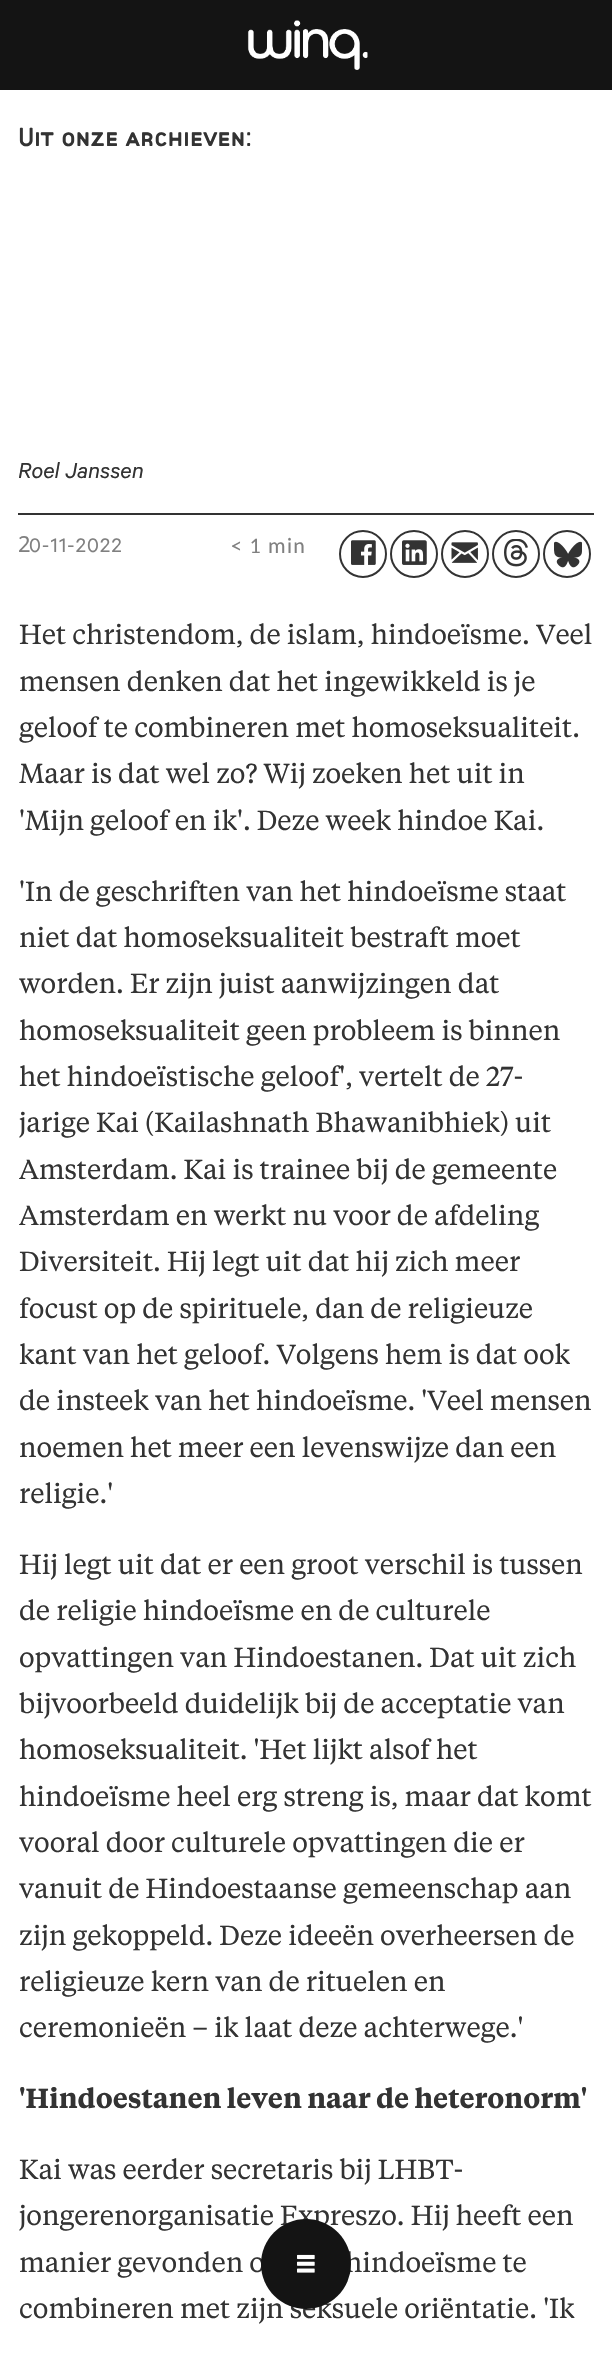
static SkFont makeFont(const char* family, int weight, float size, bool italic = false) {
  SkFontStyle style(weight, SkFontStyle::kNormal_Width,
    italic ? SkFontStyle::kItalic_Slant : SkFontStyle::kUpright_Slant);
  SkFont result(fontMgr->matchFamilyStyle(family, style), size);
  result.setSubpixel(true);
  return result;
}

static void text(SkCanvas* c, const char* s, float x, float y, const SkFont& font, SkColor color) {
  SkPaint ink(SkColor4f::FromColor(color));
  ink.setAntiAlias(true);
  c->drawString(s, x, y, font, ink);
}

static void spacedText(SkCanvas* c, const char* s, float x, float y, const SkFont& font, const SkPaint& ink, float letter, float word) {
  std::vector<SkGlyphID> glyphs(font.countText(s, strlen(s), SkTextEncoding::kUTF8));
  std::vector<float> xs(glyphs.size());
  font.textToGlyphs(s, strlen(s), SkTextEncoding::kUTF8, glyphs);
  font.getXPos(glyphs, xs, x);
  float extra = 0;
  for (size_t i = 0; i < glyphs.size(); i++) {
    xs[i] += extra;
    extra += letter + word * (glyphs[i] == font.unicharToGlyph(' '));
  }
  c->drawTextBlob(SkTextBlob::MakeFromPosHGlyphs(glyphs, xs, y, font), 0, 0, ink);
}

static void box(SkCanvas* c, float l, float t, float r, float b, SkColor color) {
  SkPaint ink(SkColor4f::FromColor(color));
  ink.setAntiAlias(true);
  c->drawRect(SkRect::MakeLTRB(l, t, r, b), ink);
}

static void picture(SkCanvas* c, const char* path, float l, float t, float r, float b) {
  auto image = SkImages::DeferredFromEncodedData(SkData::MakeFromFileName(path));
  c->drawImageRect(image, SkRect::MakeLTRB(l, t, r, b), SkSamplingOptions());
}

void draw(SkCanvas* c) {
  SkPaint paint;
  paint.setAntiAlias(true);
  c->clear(0xffffffff);
  box(c, 0, 0, 612, 90, 0xff141414);
  picture(c, "img_01.png", 247, 20, 368, 70);
  SkFont face1 = makeFont("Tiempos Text", 400, 27.25f);
  text(c, "jongerenorganisatie Expreszo. Hij heeft een", 19, 2225, face1, 0xff333333);
  text(c, "manier gevonden o", 19, 2272, face1, 0xff333333);
  text(c, "hindoeïsme te", 345, 2272, face1, 0xff333333);
  text(c, "combineren met zijn seksuele oriëntatie. 'Ik", 19, 2318, face1, 0xff333333);
  paint.setColor(0xff141414);
  c->drawCircle(306, 2264, 45, paint);
  picture(c, "img_02.png", 297, 2254, 315, 2273);
  SkFont face2 = makeFont("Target", 400, 27.25f);
  text(c, "Uit onze archieven:", 18, 146, face2, 0xff333333);
  box(c, 18, 513, 594, 515, 0xff333333);
  SkFont face3 = makeFont("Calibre", 400, 24.5f, true);
  text(c, "Roel Janssen", 18, 478, face3, 0xff333333);
  SkFont face4 = makeFont("Noto Sans", 400, 22);
  paint.setColor(0xff808080);
  spacedText(c, "2", 18, 552, face4, paint, 1.25f, 0);
  SkFont face5 = makeFont("Calibre", 400, 22);
  spacedText(c, "0-11-2022", 29, 552, face5, paint, 1.25f, 0);
  SkFont face6 = makeFont("Carlito", 400, 22);
  spacedText(c, "< 1 min", 231, 553, face6, paint, 1.25f, 0);
  paint.setStyle(SkPaint::kStroke_Style);
  paint.setStrokeWidth(2);
  paint.setColor(0xff333333);
  c->drawCircle(363, 554, 23, paint);
  picture(c, "img_03.png", 351, 540, 376, 565);
  c->drawCircle(414, 554, 23, paint);
  picture(c, "img_04.png", 402, 540, 427, 565);
  c->drawCircle(465, 554, 23, paint);
  picture(c, "img_05.png", 451, 542, 478, 563);
  c->drawCircle(516, 554, 23, paint);
  picture(c, "img_06.png", 504, 539, 528, 567);
  c->drawCircle(567, 554, 23, paint);
  picture(c, "img_07.png", 554, 541, 582, 568);
  text(c, "Het christendom, de islam, hindoeïsme. Veel", 19, 644, face1, 0xff333333);
  text(c, "mensen denken dat het ingewikkeld is je", 19, 691, face1, 0xff333333);
  text(c, "geloof te combineren met homoseksualiteit.", 19, 737, face1, 0xff333333);
  text(c, "Maar is dat wel zo? Wij zoeken het uit in", 19, 783, face1, 0xff333333);
  text(c, "'Mijn geloof en ik'. Deze week hindoe Kai.", 19, 830, face1, 0xff333333);
  text(c, "'In de geschriften van het hindoeïsme staat", 19, 901, face1, 0xff333333);
  text(c, "niet dat homoseksualiteit bestraft moet", 19, 947, face1, 0xff333333);
  text(c, "worden. Er zijn juist aanwijzingen dat", 19, 993, face1, 0xff333333);
  text(c, "homoseksualiteit geen probleem is binnen", 19, 1040, face1, 0xff333333);
  text(c, "het hindoeïstische geloof', vertelt de 27-", 19, 1086, face1, 0xff333333);
  text(c, "jarige Kai (Kailashnath Bhawanibhiek) uit", 19, 1132, face1, 0xff333333);
  text(c, "Amsterdam. Kai is trainee bij de gemeente", 19, 1179, face1, 0xff333333);
  text(c, "Amsterdam en werkt nu voor de afdeling", 19, 1225, face1, 0xff333333);
  text(c, "Diversiteit. Hij legt uit dat hij zich meer", 19, 1271, face1, 0xff333333);
  text(c, "focust op de spirituele, dan de religieuze", 19, 1318, face1, 0xff333333);
  text(c, "kant van het geloof. Volgens hem is dat ook", 19, 1364, face1, 0xff333333);
  text(c, "de insteek van het hindoeïsme. 'Veel mensen", 19, 1410, face1, 0xff333333);
  text(c, "noemen het meer een levenswijze dan een", 19, 1457, face1, 0xff333333);
  text(c, "religie.'", 19, 1503, face1, 0xff333333);
  text(c, "Hij legt uit dat er een groot verschil is tussen", 19, 1574, face1, 0xff333333);
  text(c, "de religie hindoeïsme en de culturele", 19, 1620, face1, 0xff333333);
  text(c, "opvattingen van Hindoestanen. Dat uit zich", 19, 1667, face1, 0xff333333);
  text(c, "bijvoorbeeld duidelijk bij de acceptatie van", 19, 1713, face1, 0xff333333);
  text(c, "homoseksualiteit. 'Het lijkt alsof het", 19, 1759, face1, 0xff333333);
  text(c, "hindoeïsme heel erg streng is, maar dat komt", 19, 1806, face1, 0xff333333);
  text(c, "vooral door culturele opvattingen die er", 19, 1852, face1, 0xff333333);
  text(c, "vanuit de Hindoestaanse gemeenschap aan", 19, 1898, face1, 0xff333333);
  text(c, "zijn gekoppeld. Deze ideeën overheersen de", 19, 1945, face1, 0xff333333);
  text(c, "religieuze kern van de rituelen en", 19, 1991, face1, 0xff333333);
  text(c, "ceremonieën – ik laat deze achterwege.'", 19, 2037, face1, 0xff333333);
  SkFont face7 = makeFont("Tiempos Text", 600, 27.25f);
  text(c, "'Hindoestanen leven naar de heteronorm'", 19, 2108, face7, 0xff333333);
  text(c, "Kai was eerder secretaris bij LHBT-", 19, 2179, face1, 0xff333333);
}
